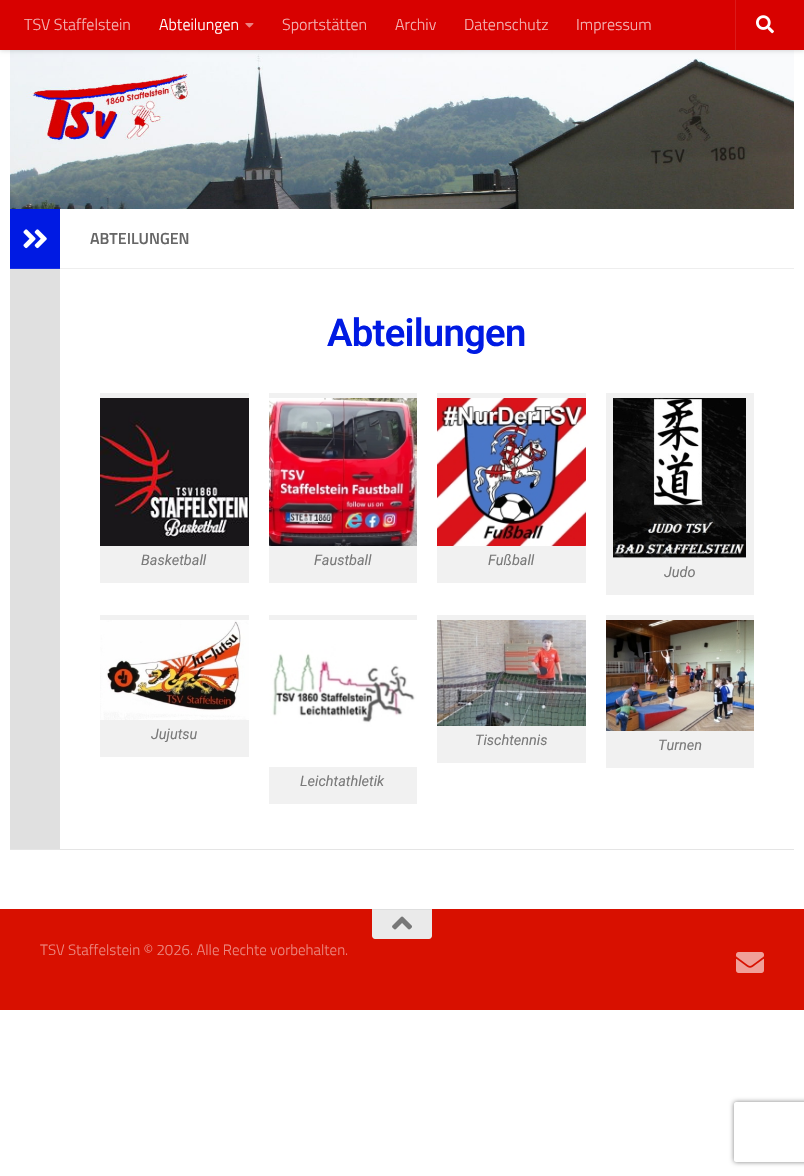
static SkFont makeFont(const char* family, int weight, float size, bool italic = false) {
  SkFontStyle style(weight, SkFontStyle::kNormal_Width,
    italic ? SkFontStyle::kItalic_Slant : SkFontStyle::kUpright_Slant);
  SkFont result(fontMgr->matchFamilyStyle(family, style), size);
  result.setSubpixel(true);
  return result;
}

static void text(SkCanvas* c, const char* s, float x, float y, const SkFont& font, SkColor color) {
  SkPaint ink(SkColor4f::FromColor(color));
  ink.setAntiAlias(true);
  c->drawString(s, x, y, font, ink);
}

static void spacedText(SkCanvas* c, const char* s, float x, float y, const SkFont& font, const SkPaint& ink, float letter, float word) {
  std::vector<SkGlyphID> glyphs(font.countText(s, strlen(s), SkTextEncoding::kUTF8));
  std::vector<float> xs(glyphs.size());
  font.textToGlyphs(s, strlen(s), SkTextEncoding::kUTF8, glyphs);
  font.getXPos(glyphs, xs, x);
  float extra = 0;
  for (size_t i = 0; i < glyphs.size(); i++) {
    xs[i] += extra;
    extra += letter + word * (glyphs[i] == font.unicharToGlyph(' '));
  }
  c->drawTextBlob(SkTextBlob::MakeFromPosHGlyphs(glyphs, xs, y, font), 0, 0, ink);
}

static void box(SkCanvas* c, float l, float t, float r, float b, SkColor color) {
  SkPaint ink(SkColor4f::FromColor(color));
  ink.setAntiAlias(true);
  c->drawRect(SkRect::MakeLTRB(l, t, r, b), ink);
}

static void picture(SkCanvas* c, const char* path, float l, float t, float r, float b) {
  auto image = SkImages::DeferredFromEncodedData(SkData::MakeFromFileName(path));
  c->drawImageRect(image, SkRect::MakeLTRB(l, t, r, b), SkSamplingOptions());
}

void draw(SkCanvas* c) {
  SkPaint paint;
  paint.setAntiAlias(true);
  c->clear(0xffffffff);
  c->save();
  c->clipRect(SkRect::MakeLTRB(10, 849, 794, 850));
  paint.setColor(0x1a000000);
  paint.setMaskFilter(SkMaskFilter::MakeBlur(kNormal_SkBlurStyle, 0.5f));
  c->drawRect(SkRect::MakeLTRB(10, 210, 794, 850), paint);
  paint.setMaskFilter(nullptr);
  c->restore();
  box(c, 9, 211, 795, 269, 0xffffffff);
  picture(c, "img_03.png", 10, 50, 794, 209);
  box(c, 10, 50, 14, 51, 0x26ffffff);
  paint.setColor(0x33000000);
  paint.setMaskFilter(SkMaskFilter::MakeBlur(kNormal_SkBlurStyle, 2.5f));
  c->drawRect(SkRect::MakeLTRB(0, 0, 804, 50), paint);
  paint.setMaskFilter(nullptr);
  box(c, 0, 0, 804, 50, 0xffd80100);
  SkFont face1 = makeFont("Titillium", 300, 16);
  text(c, "TSV Staffelstein", 24, 30, face1, 0xfff3b3b3);
  text(c, "Abteilungen", 159, 30, face1, 0xffffffff);
  picture(c, "img_01.png", 245, 23, 254, 28);
  text(c, "Sportstätten", 282, 30, face1, 0xfff3b3b3);
  text(c, "Archiv", 395, 30, face1, 0xfff3b3b3);
  text(c, "Datenschutz", 464, 30, face1, 0xfff3b3b3);
  text(c, "Impressum", 576, 30, face1, 0xfff3b3b3);
  box(c, 735, 0, 736, 50, 0xffdc1a1a);
  picture(c, "img_02.png", 756, 15, 774, 34);
  box(c, 10, 269, 60, 849, 0xffe0e0e0);
  box(c, 10, 209, 60, 268, 0xff001ae3);
  box(c, 10, 268, 60, 269, 0xff1a31e6);
  picture(c, "img_04.png", 23, 229, 47, 249);
  box(c, 60, 268, 794, 269, 0xffeeeeee);
  SkFont face2 = makeFont("Titillium", 600, 16);
  text(c, "ABTEILUNGEN", 90, 244, face2, 0xff666666);
  SkFont face3 = makeFont("Roboto", 600, 38.25f);
  paint.setColor(0xff001ae3);
  spacedText(c, "Abteilungen", 327, 346, face3, paint, -0.75f, 0);
  box(c, 100, 393, 249, 583, 0xfff1f1f1);
  picture(c, "img_05.png", 100, 398, 249, 546);
  SkFont face4 = makeFont("Roboto", 400, 14.5f, true);
  text(c, "Basketball", 141, 565, face4, 0xff7a7a7a);
  box(c, 269, 393, 417, 583, 0xfff1f1f1);
  picture(c, "img_06.png", 269, 398, 417, 546);
  text(c, "Faustball", 314, 565, face4, 0xff7a7a7a);
  box(c, 437, 393, 586, 583, 0xfff1f1f1);
  picture(c, "img_07.png", 437, 398, 586, 546);
  text(c, "Fußball", 488, 565, face4, 0xff7a7a7a);
  box(c, 606, 393, 754, 595, 0xfff1f1f1);
  picture(c, "img_08.png", 613, 398, 746, 558);
  text(c, "Judo", 664, 577, face4, 0xff7a7a7a);
  box(c, 100, 615, 249, 757, 0xfff1f1f1);
  picture(c, "img_09.png", 100, 620, 249, 720);
  text(c, "Jujutsu", 151, 739, face4, 0xff7a7a7a);
  box(c, 437, 615, 586, 763, 0xfff1f1f1);
  picture(c, "img_10.png", 437, 620, 586, 726);
  text(c, "Tischtennis", 475, 745, face4, 0xff7a7a7a);
  box(c, 606, 615, 754, 768, 0xfff1f1f1);
  picture(c, "img_11.png", 606, 620, 754, 731);
  text(c, "Turnen", 658, 750, face4, 0xff7a7a7a);
  box(c, 269, 615, 417, 804, 0xfff1f1f1);
  picture(c, "img_12.png", 269, 620, 417, 767);
  text(c, "Leichtathletik", 300, 786, face4, 0xff7a7a7a);
  box(c, 0, 909, 804, 1010, 0xffd81000);
  paint.setColor(0xffeaeaea);
  c->drawPath(SkPathBuilder().moveTo(372, 909).lineTo(432, 909).lineTo(432, 936).cubicTo(432, 937.5f, 430.5f, 939, 429, 939).lineTo(375, 939).cubicTo(373.5f, 939, 372, 937.5f, 372, 936).close().detach(), paint);
  box(c, 372, 909, 432, 910, 0xffdedede);
  picture(c, "img_13.png", 392, 916, 412, 930);
  SkFont face5 = makeFont("Titillium", 300, 15);
  text(c, "TSV Staffelstein © 2026. Alle Rechte vorbehalten.", 40, 955, face5, 0xffec8880);
  picture(c, "img_14.png", 736, 952, 764, 973);
  c->save();
  c->clipPath(SkPathBuilder(SkPathFillType::kEvenOdd).moveTo(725, 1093).lineTo(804, 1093).lineTo(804, 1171).lineTo(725, 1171).close().moveTo(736, 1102).lineTo(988, 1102).cubicTo(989, 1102, 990, 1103, 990, 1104).lineTo(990, 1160).cubicTo(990, 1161, 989, 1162, 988, 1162).lineTo(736, 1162).cubicTo(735, 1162, 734, 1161, 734, 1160).lineTo(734, 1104).cubicTo(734, 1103, 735, 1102, 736, 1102).close().detach(), true);
  paint.setColor(0xff808080);
  paint.setMaskFilter(SkMaskFilter::MakeBlur(kNormal_SkBlurStyle, 2.5f));
  c->drawRoundRect(SkRect::MakeLTRB(734, 1102, 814, 1162), 2, 2, paint);
  paint.setMaskFilter(nullptr);
  c->restore();
}
